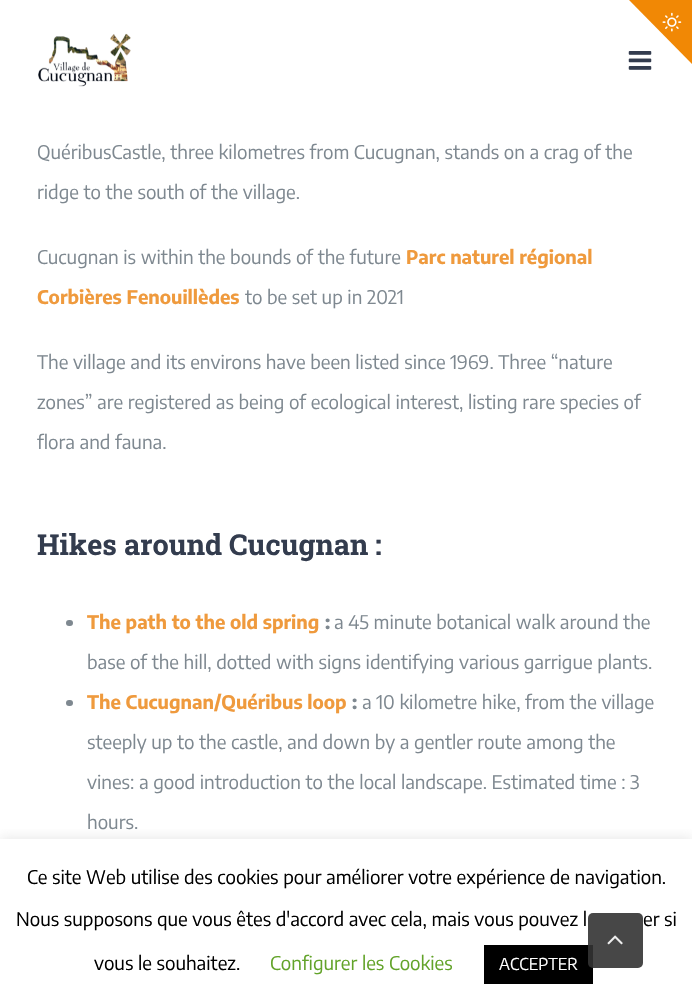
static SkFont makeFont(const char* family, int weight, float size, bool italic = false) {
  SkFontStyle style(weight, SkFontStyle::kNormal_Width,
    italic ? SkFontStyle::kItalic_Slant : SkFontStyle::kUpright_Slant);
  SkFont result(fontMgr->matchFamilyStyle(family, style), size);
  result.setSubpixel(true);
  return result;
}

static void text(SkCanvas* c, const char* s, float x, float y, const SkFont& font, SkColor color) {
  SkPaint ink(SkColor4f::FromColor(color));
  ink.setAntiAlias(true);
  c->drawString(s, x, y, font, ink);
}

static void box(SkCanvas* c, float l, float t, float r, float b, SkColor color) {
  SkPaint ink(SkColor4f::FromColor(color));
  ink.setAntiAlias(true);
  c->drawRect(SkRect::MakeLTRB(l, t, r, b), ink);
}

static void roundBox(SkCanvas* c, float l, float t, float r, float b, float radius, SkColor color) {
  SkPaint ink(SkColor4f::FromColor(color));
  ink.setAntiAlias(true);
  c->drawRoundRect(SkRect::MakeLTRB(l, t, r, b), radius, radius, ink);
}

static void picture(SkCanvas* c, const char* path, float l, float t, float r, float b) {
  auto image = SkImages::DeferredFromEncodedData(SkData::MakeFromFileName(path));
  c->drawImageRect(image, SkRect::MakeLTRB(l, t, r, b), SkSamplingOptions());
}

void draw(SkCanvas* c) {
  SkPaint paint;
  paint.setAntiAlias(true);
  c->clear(0xffffffff);
  picture(c, "img_01.png", 38, 33, 131, 87);
  picture(c, "img_02.png", 628, 51, 652, 70);
  paint.setColor(0xfff18805);
  c->drawPath(SkPathBuilder().moveTo(629, 0).lineTo(692, 0).lineTo(692, 64).close().detach(), paint);
  picture(c, "img_03.png", 662, 12, 682, 32);
  SkFont face1 = makeFont("Encode Sans Condensed", 400, 18.75f);
  text(c, "QuéribusCastle, three kilometres from Cucugnan, stands on a crag of the", 37, 159, face1, 0xff7e8890);
  text(c, "ridge to the south of the village.", 37, 199, face1, 0xff7e8890);
  text(c, "Cucugnan is within the bounds of the future", 37, 264, face1, 0xff7e8890);
  SkFont face2 = makeFont("Encode Sans Condensed", 700, 18.75f);
  text(c, "Parc naturel régional", 406, 264, face2, 0xffef9a3d);
  text(c, "Corbières Fenouillèdes", 37, 304, face2, 0xffef9a3d);
  text(c, "to be set up in 2021", 245, 304, face1, 0xff7e8890);
  text(c, "The village and its environs have been listed since 1969. Three “nature", 37, 369, face1, 0xff7e8890);
  text(c, "zones” are registered as being of ecological interest, listing rare species of", 37, 409, face1, 0xff7e8890);
  text(c, "flora and fauna.", 37, 449, face1, 0xff7e8890);
  SkFont face3 = makeFont("Roboto Slab", 700, 28.75f);
  text(c, "Hikes around Cucugnan :", 37, 555, face3, 0xff333c4e);
  roundBox(c, 66, 620, 73, 626, 3, 0xff7e8890);
  text(c, "The path to the old spring", 87, 629, face2, 0xffef9a3d);
  text(c, ":", 325, 629, face2, 0xff7e8890);
  text(c, "a 45 minute botanical walk around the", 334, 629, face1, 0xff7e8890);
  text(c, "base of the hill, dotted with signs identifying various garrigue plants.", 87, 669, face1, 0xff7e8890);
  roundBox(c, 66, 700, 73, 706, 3, 0xff7e8890);
  text(c, "The Cucugnan/Quéribus loop", 87, 709, face2, 0xffef9a3d);
  text(c, ":", 352, 709, face2, 0xff7e8890);
  text(c, "a 10 kilometre hike, from the village", 362, 709, face1, 0xff7e8890);
  text(c, "steeply up to the castle, and down by a gentler route among the", 87, 749, face1, 0xff7e8890);
  text(c, "vines: a good introduction to the local landscape. Estimated time : 3", 87, 789, face1, 0xff7e8890);
  text(c, "hours.", 87, 829, face1, 0xff7e8890);
  c->save();
  c->clipRect(SkRect::MakeLTRB(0, 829, 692, 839));
  paint.setColor(0x4dacabab);
  paint.setMaskFilter(SkMaskFilter::MakeBlur(kNormal_SkBlurStyle, 6));
  c->drawRect(SkRect::MakeLTRB(0, 838, 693, 1004), paint);
  paint.setMaskFilter(nullptr);
  c->restore();
  text(c, "Ce site Web utilise des cookies pour améliorer votre expérience de navigation.", 27, 884, face1, 0xff000000);
  text(c, "Nous supposons que vous êtes d'accord avec cela, mais vous pouvez l", 16, 926, face1, 0xff000000);
  text(c, "er si", 643, 926, face1, 0xff000000);
  text(c, "vous le souhaitez.", 94, 970, face1, 0xff000000);
  text(c, "Configurer les Cookies", 270, 970, face1, 0xff62a329);
  box(c, 484, 945, 593, 984, 0xff000000);
  SkFont face4 = makeFont("Encode Sans Condensed", 400, 16.25f);
  text(c, "ACCEPTER", 499, 970, face4, 0xffffffff);
  roundBox(c, 588, 913, 643, 968, 5, 0xe6333333);
  picture(c, "img_04.png", 607, 935, 623, 945);
}
